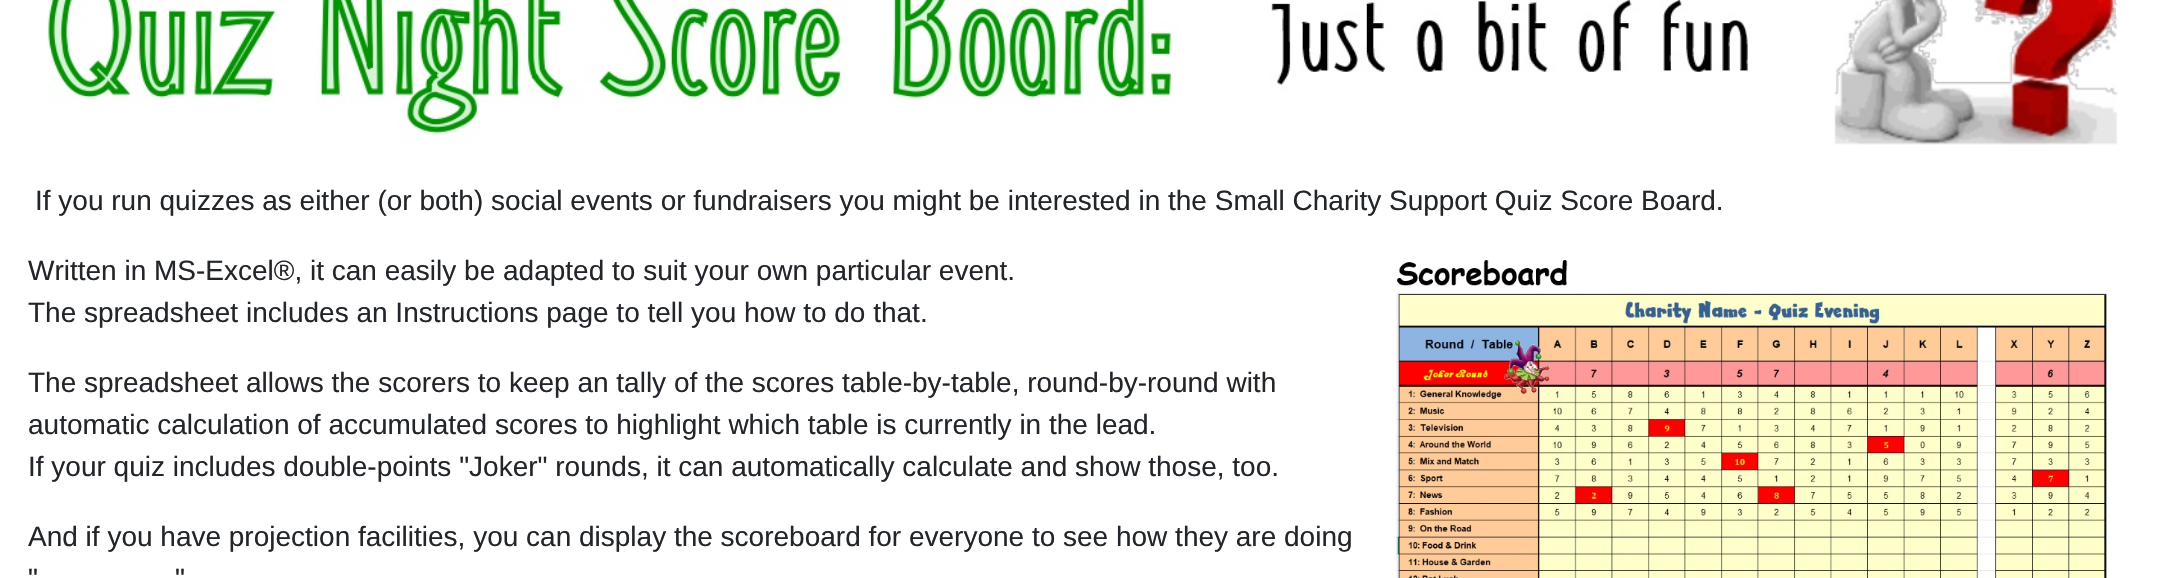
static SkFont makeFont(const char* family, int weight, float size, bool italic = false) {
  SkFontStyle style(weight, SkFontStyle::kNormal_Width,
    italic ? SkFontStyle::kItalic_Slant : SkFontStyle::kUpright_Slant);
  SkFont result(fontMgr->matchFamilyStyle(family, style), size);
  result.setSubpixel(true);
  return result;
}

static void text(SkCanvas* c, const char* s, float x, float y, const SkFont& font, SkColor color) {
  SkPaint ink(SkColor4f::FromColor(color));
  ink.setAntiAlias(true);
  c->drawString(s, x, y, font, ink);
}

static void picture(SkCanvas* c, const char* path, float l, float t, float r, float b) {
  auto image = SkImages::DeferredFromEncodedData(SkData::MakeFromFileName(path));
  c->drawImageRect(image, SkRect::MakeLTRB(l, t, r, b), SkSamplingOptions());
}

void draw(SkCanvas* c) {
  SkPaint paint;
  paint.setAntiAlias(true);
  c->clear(0xffffffff);
  picture(c, "img_01.png", 47, 0, 2118, 145);
  SkFont face1 = makeFont("Liberation Sans", 400, 28);
  text(c, "If you run quizzes as either (or both) social events or fundraisers you might be interested in the Small Charity Support Quiz Score Board.", 35, 210, face1, 0xff22262a);
  text(c, "Written in MS-Excel®, it can easily be adapted to suit your own particular event.", 28, 280, face1, 0xff22262a);
  picture(c, "img_02.png", 1396, 260, 2112, 578);
  text(c, "The spreadsheet includes an Instructions page to tell you how to do that.", 28, 322, face1, 0xff22262a);
  text(c, "The spreadsheet allows the scorers to keep an tally of the scores table-by-table, round-by-round with", 28, 392, face1, 0xff22262a);
  text(c, "automatic calculation of accumulated scores to highlight which table is currently in the lead.", 28, 434, face1, 0xff22262a);
  text(c, "If your quiz includes double-points \"Joker\" rounds, it can automatically calculate and show those, too.", 28, 476, face1, 0xff22262a);
  text(c, "And if you have projection facilities, you can display the scoreboard for everyone to see how they are doing", 28, 546, face1, 0xff22262a);
  text(c, "\"", 28, 588, face1, 0xff22262a);
  text(c, "\"", 175, 588, face1, 0xff22262a);
}
